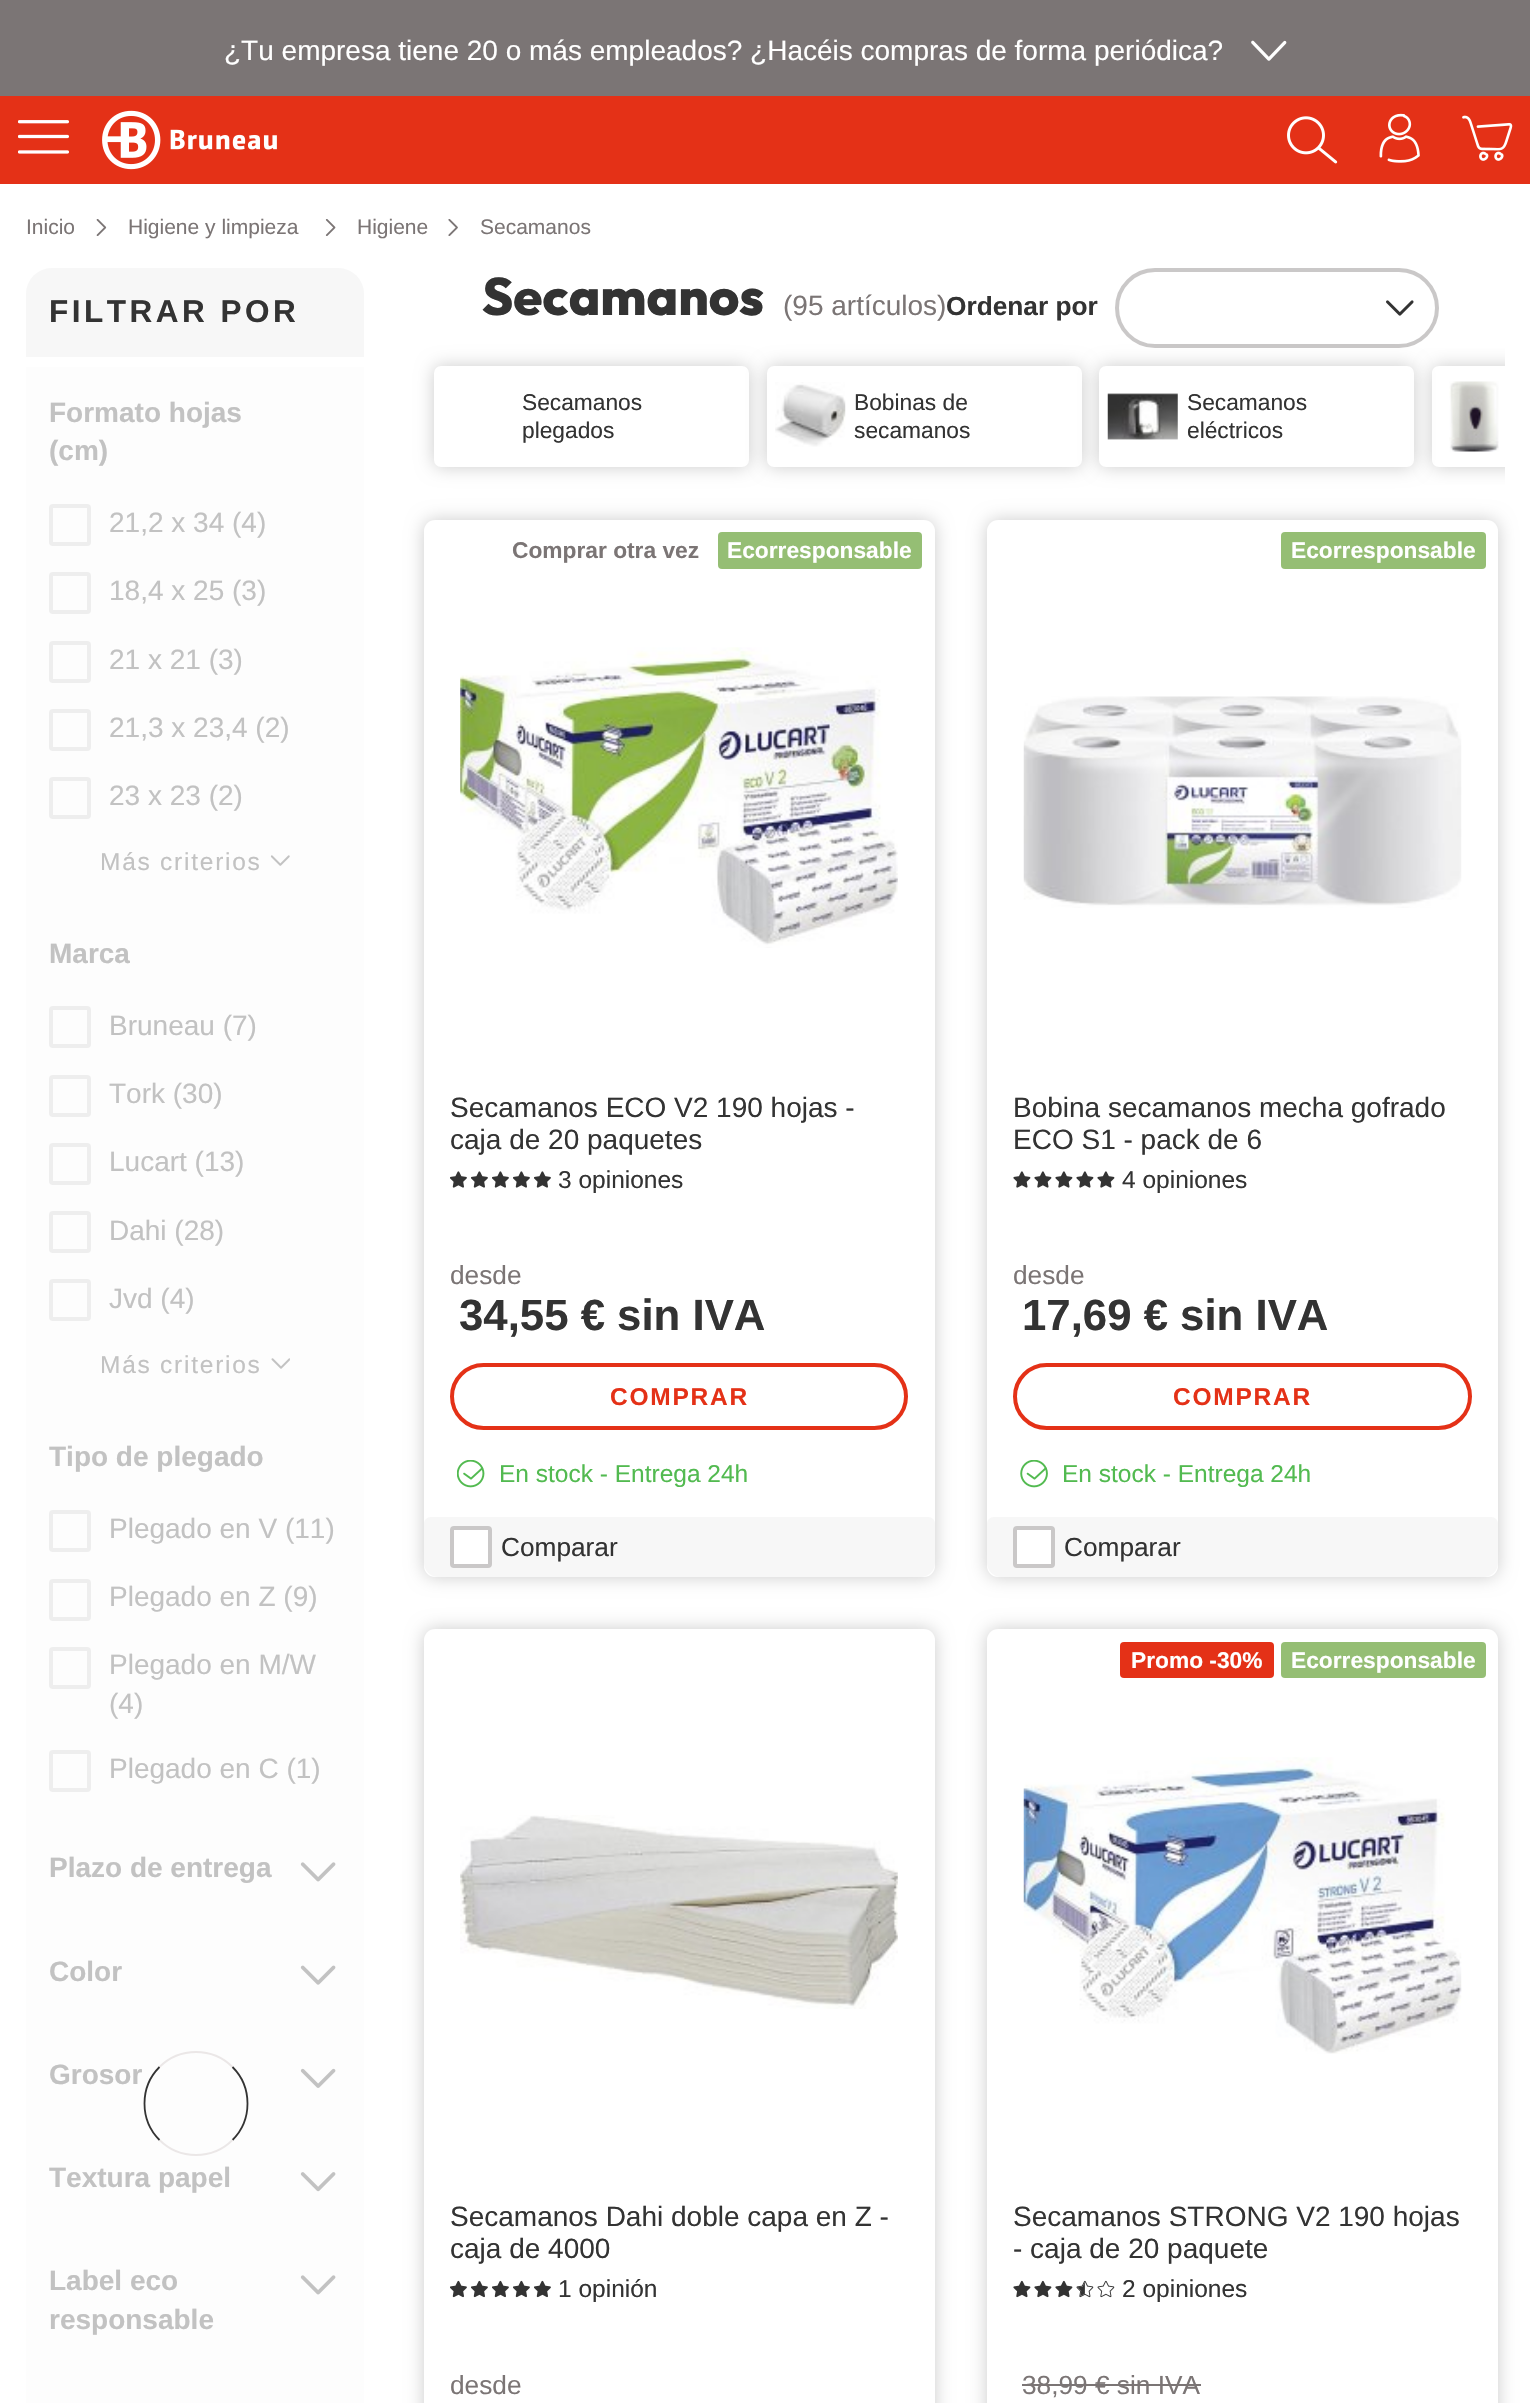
static SkFont makeFont(const char* family, int weight, float size, bool italic = false) {
  SkFontStyle style(weight, SkFontStyle::kNormal_Width,
    italic ? SkFontStyle::kItalic_Slant : SkFontStyle::kUpright_Slant);
  SkFont result(fontMgr->matchFamilyStyle(family, style), size);
  result.setSubpixel(true);
  return result;
}

static void text(SkCanvas* c, const char* s, float x, float y, const SkFont& font, SkColor color) {
  SkPaint ink(SkColor4f::FromColor(color));
  ink.setAntiAlias(true);
  c->drawString(s, x, y, font, ink);
}

static void spacedText(SkCanvas* c, const char* s, float x, float y, const SkFont& font, const SkPaint& ink, float letter, float word) {
  std::vector<SkGlyphID> glyphs(font.countText(s, strlen(s), SkTextEncoding::kUTF8));
  std::vector<float> xs(glyphs.size());
  font.textToGlyphs(s, strlen(s), SkTextEncoding::kUTF8, glyphs);
  font.getXPos(glyphs, xs, x);
  float extra = 0;
  for (size_t i = 0; i < glyphs.size(); i++) {
    xs[i] += extra;
    extra += letter + word * (glyphs[i] == font.unicharToGlyph(' '));
  }
  c->drawTextBlob(SkTextBlob::MakeFromPosHGlyphs(glyphs, xs, y, font), 0, 0, ink);
}

static void box(SkCanvas* c, float l, float t, float r, float b, SkColor color) {
  SkPaint ink(SkColor4f::FromColor(color));
  ink.setAntiAlias(true);
  c->drawRect(SkRect::MakeLTRB(l, t, r, b), ink);
}

static void roundBox(SkCanvas* c, float l, float t, float r, float b, float radius, SkColor color) {
  SkPaint ink(SkColor4f::FromColor(color));
  ink.setAntiAlias(true);
  c->drawRoundRect(SkRect::MakeLTRB(l, t, r, b), radius, radius, ink);
}

static void picture(SkCanvas* c, const char* path, float l, float t, float r, float b) {
  auto image = SkImages::DeferredFromEncodedData(SkData::MakeFromFileName(path));
  c->drawImageRect(image, SkRect::MakeLTRB(l, t, r, b), SkSamplingOptions());
}

void draw(SkCanvas* c) {
  SkPaint paint;
  paint.setAntiAlias(true);
  c->clear(0xffffffff);
  box(c, 0, 0, 1530, 96, 0xff7b7575);
  SkFont face1 = makeFont("Liberation Sans", 400, 28);
  text(c, "¿Tu empresa tiene 20 o más empleados? ¿Hacéis compras de forma periódica?", 224, 60, face1, 0xffffffff);
  picture(c, "img_01.png", 1251, 40, 1287, 61);
  box(c, 0, 96, 1530, 184, 0xffe43117);
  picture(c, "img_02.png", 18, 120, 69, 154);
  picture(c, "img_03.png", 102, 110, 277, 170);
  picture(c, "img_04.png", 1287, 116, 1338, 164);
  picture(c, "img_05.png", 1379, 113, 1420, 163);
  picture(c, "img_06.png", 1462, 115, 1513, 161);
  SkFont face2 = makeFont("Liberation Sans", 400, 21);
  text(c, "Inicio", 26, 234, face2, 0xff7b7575);
  picture(c, "img_07.png", 96, 219, 107, 236);
  text(c, "Higiene y limpieza", 128, 234, face2, 0xff7b7575);
  picture(c, "img_08.png", 325, 219, 336, 236);
  text(c, "Higiene", 357, 234, face2, 0xff7b7575);
  picture(c, "img_09.png", 448, 219, 458, 236);
  text(c, "Secamanos", 480, 234, face2, 0xff7b7575);
  roundBox(c, 26, 268, 364, 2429, 26, 0xfff7f7f7);
  box(c, 26, 367, 364, 2403, 0xfffdfdfd);
  SkFont face3 = makeFont("Liberation Sans", 700, 31.5f);
  paint.setColor(0xff333333);
  spacedText(c, "FILTRAR POR", 49, 322, face3, paint, 3.5f, 0);
  box(c, 26, 357, 364, 367, 0xffffffff);
  SkFont face4 = makeFont("Liberation Sans", 700, 28);
  text(c, "Formato hojas", 49, 422, face4, 0xffc2c2c2);
  text(c, "(cm)", 49, 460, face4, 0xffc2c2c2);
  paint.setStyle(SkPaint::kStroke_Style);
  paint.setStrokeWidth(4);
  paint.setColor(0x66d7d6d6);
  c->drawRoundRect(SkRect::MakeLTRB(51, 506, 89, 544), 2, 2, paint);
  text(c, "21,2 x 34 (4)", 109, 532, face1, 0xffc2c2c2);
  c->drawRoundRect(SkRect::MakeLTRB(51, 574, 89, 612), 2, 2, paint);
  text(c, "18,4 x 25 (3)", 109, 600, face1, 0xffc2c2c2);
  c->drawRoundRect(SkRect::MakeLTRB(51, 643, 89, 681), 2, 2, paint);
  text(c, "21 x 21 (3)", 109, 669, face1, 0xffc2c2c2);
  c->drawRoundRect(SkRect::MakeLTRB(51, 711, 89, 749), 2, 2, paint);
  text(c, "21,3 x 23,4 (2)", 109, 737, face1, 0xffc2c2c2);
  c->drawRoundRect(SkRect::MakeLTRB(51, 779, 89, 817), 2, 2, paint);
  text(c, "23 x 23 (2)", 109, 805, face1, 0xffc2c2c2);
  SkFont face5 = makeFont("Liberation Sans", 400, 24.5f);
  paint.setStyle(SkPaint::kFill_Style);
  paint.setColor(0xffc2c2c2);
  spacedText(c, "Más criterios", 100, 870, face5, paint, 1.75f, 0);
  picture(c, "img_10.png", 270, 855, 290, 866);
  text(c, "Marca", 49, 963, face4, 0xffc2c2c2);
  paint.setStyle(SkPaint::kStroke_Style);
  paint.setColor(0x66d7d6d6);
  c->drawRoundRect(SkRect::MakeLTRB(51, 1008, 89, 1046), 2, 2, paint);
  text(c, "Bruneau (7)", 109, 1035, face1, 0xffc2c2c2);
  c->drawRoundRect(SkRect::MakeLTRB(51, 1077, 89, 1115), 2, 2, paint);
  text(c, "Tork (30)", 109, 1103, face1, 0xffc2c2c2);
  c->drawRoundRect(SkRect::MakeLTRB(51, 1145, 89, 1183), 2, 2, paint);
  text(c, "Lucart (13)", 109, 1171, face1, 0xffc2c2c2);
  c->drawRoundRect(SkRect::MakeLTRB(51, 1213, 89, 1251), 2, 2, paint);
  text(c, "Dahi (28)", 109, 1240, face1, 0xffc2c2c2);
  c->drawRoundRect(SkRect::MakeLTRB(51, 1281, 89, 1319), 2, 2, paint);
  text(c, "Jvd (4)", 109, 1308, face1, 0xffc2c2c2);
  paint.setStyle(SkPaint::kFill_Style);
  paint.setColor(0xffc2c2c2);
  spacedText(c, "Más criterios", 100, 1373, face5, paint, 1.75f, 0);
  picture(c, "img_11.png", 271, 1358, 290, 1369);
  text(c, "Tipo de plegado", 49, 1466, face4, 0xffc2c2c2);
  paint.setStyle(SkPaint::kStroke_Style);
  paint.setColor(0x66d7d6d6);
  c->drawRoundRect(SkRect::MakeLTRB(51, 1512, 89, 1550), 2, 2, paint);
  text(c, "Plegado en V (11)", 109, 1538, face1, 0xffc2c2c2);
  c->drawRoundRect(SkRect::MakeLTRB(51, 1581, 89, 1619), 2, 2, paint);
  text(c, "Plegado en Z (9)", 109, 1606, face1, 0xffc2c2c2);
  c->drawRoundRect(SkRect::MakeLTRB(51, 1649, 89, 1687), 2, 2, paint);
  text(c, "Plegado en M/W", 109, 1674, face1, 0xffc2c2c2);
  text(c, "(4)", 109, 1713, face1, 0xffc2c2c2);
  c->drawRoundRect(SkRect::MakeLTRB(51, 1752, 89, 1790), 2, 2, paint);
  text(c, "Plegado en C (1)", 109, 1778, face1, 0xffc2c2c2);
  text(c, "Plazo de entrega", 49, 1877, face4, 0xffc2c2c2);
  picture(c, "img_12.png", 300, 1862, 336, 1882);
  text(c, "Color", 49, 1981, face4, 0xffc2c2c2);
  picture(c, "img_13.png", 300, 1965, 336, 1985);
  text(c, "Grosor", 49, 2084, face4, 0xffc2c2c2);
  picture(c, "img_14.png", 300, 2068, 336, 2088);
  paint.setStrokeWidth(1.8f);
  paint.setColor(0xffebe7e7);
  c->drawPath(SkPathBuilder().moveTo(159.5f, 2067).cubicTo(179.5f, 2047, 212.5f, 2047, 232.5f, 2067).detach(), paint);
  paint.setColor(0xff333333);
  c->drawPath(SkPathBuilder().moveTo(232.5f, 2067).cubicTo(252.5f, 2087, 252.5f, 2120, 232.5f, 2140).detach(), paint);
  paint.setColor(0xffebe7e7);
  c->drawPath(SkPathBuilder().moveTo(232.5f, 2140).cubicTo(212.5f, 2160, 179.5f, 2160, 159.5f, 2140).detach(), paint);
  paint.setColor(0xff333333);
  c->drawPath(SkPathBuilder().moveTo(159.5f, 2140).cubicTo(139.5f, 2120, 139.5f, 2087, 159.5f, 2067).detach(), paint);
  text(c, "Textura papel", 49, 2187, face4, 0xffc2c2c2);
  picture(c, "img_15.png", 300, 2172, 336, 2192);
  text(c, "Label eco", 49, 2290, face4, 0xffc2c2c2);
  picture(c, "img_12.png", 300, 2275, 336, 2295);
  text(c, "responsable", 49, 2329, face4, 0xffc2c2c2);
  SkFont face6 = makeFont("Outfit", 800, 52.5f);
  text(c, "Secamanos", 482, 315, face6, 0xff333333);
  text(c, "(95 artículos)", 783, 315, face1, 0xff7b7575);
  SkFont face7 = makeFont("Liberation Sans", 700, 26.25f);
  text(c, "Ordenar por", 946, 315, face7, 0xff333333);
  paint.setStrokeWidth(4);
  paint.setColor(0xffcac8c8);
  c->drawRoundRect(SkRect::MakeLTRB(1117, 270, 1437, 346), 38, 38, paint);
  picture(c, "img_16.png", 1386, 300, 1414, 316);
  paint.setStyle(SkPaint::kFill_Style);
  paint.setColor(0x33000000);
  paint.setMaskFilter(SkMaskFilter::MakeBlur(kNormal_SkBlurStyle, 9));
  c->drawRoundRect(SkRect::MakeLTRB(434, 366, 749, 467), 7, 7, paint);
  paint.setMaskFilter(nullptr);
  roundBox(c, 434, 366, 749, 467, 7, 0xffffffff);
  SkFont face8 = makeFont("Liberation Sans", 400, 22.75f);
  text(c, "Secamanos", 522, 410, face8, 0xff333333);
  text(c, "plegados", 522, 438, face8, 0xff333333);
  paint.setMaskFilter(SkMaskFilter::MakeBlur(kNormal_SkBlurStyle, 9));
  c->drawRoundRect(SkRect::MakeLTRB(767, 366, 1082, 467), 7, 7, paint);
  paint.setMaskFilter(nullptr);
  roundBox(c, 767, 366, 1082, 467, 7, 0xffffffff);
  picture(c, "img_17.png", 775, 382, 846, 447);
  text(c, "Bobinas de", 854, 410, face8, 0xff333333);
  text(c, "secamanos", 854, 438, face8, 0xff333333);
  paint.setMaskFilter(SkMaskFilter::MakeBlur(kNormal_SkBlurStyle, 9));
  c->drawRoundRect(SkRect::MakeLTRB(1099, 366, 1414, 467), 7, 7, paint);
  paint.setMaskFilter(nullptr);
  roundBox(c, 1099, 366, 1414, 467, 7, 0xffffffff);
  picture(c, "img_18.png", 1107, 393, 1178, 440);
  text(c, "Secamanos", 1187, 410, face8, 0xff333333);
  text(c, "eléctricos", 1187, 438, face8, 0xff333333);
  c->save();
  c->clipRect(SkRect::MakeLTRB(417, 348, 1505, 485));
  c->clipPath(SkPathBuilder(SkPathFillType::kEvenOdd).moveTo(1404, 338).lineTo(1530, 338).lineTo(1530, 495).lineTo(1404, 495).close().moveTo(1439, 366).lineTo(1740, 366).cubicTo(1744, 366, 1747, 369, 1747, 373).lineTo(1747, 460).cubicTo(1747, 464, 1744, 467, 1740, 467).lineTo(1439, 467).cubicTo(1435, 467, 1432, 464, 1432, 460).lineTo(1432, 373).cubicTo(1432, 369, 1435, 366, 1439, 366).close().detach(), true);
  paint.setMaskFilter(SkMaskFilter::MakeBlur(kNormal_SkBlurStyle, 9));
  c->drawRoundRect(SkRect::MakeLTRB(1432, 366, 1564, 467), 7, 7, paint);
  paint.setMaskFilter(nullptr);
  c->restore();
  picture(c, "img_19.png", 1449, 381, 1499, 452);
  paint.setMaskFilter(SkMaskFilter::MakeBlur(kNormal_SkBlurStyle, 9));
  c->drawRoundRect(SkRect::MakeLTRB(424, 520, 935, 1577), 11, 11, paint);
  paint.setMaskFilter(nullptr);
  roundBox(c, 424, 520, 935, 1577, 11, 0xffffffff);
  SkFont face9 = makeFont("Liberation Sans", 700, 22.75f);
  text(c, "Comprar otra vez", 512, 558, face9, 0xff7b7575);
  roundBox(c, 718, 532, 922, 569, 4, 0xff95be74);
  text(c, "Ecorresponsable", 727, 558, face9, 0xffffffff);
  picture(c, "img_20.png", 460, 647, 898, 948);
  text(c, "Secamanos ECO V2 190 hojas -", 450, 1117, face1, 0xff333333);
  text(c, "caja de 20 paquetes", 450, 1149, face1, 0xff333333);
  picture(c, "img_21.png", 450, 1171, 467, 1188);
  picture(c, "img_21.png", 471, 1171, 488, 1188);
  picture(c, "img_21.png", 492, 1171, 509, 1188);
  picture(c, "img_21.png", 513, 1171, 530, 1188);
  picture(c, "img_21.png", 534, 1171, 551, 1188);
  text(c, "3 opiniones", 558, 1188, face5, 0xff333333);
  SkFont face10 = makeFont("Liberation Sans", 400, 26.25f);
  text(c, "desde", 450, 1284, face10, 0xff7b7575);
  SkFont face11 = makeFont("Liberation Sans", 700, 43.75f);
  text(c, "34,55 € sin IVA", 459, 1330, face11, 0xff333333);
  paint.setStyle(SkPaint::kStroke_Style);
  paint.setColor(0xffe43117);
  c->drawRoundRect(SkRect::MakeLTRB(452, 1365, 906, 1428), 31.5f, 31.5f, paint);
  SkFont face12 = makeFont("Liberation Sans", 700, 24.5f);
  paint.setStyle(SkPaint::kFill_Style);
  spacedText(c, "COMPRAR", 610, 1405, face12, paint, 1.75f, 0);
  picture(c, "img_22.png", 457, 1460, 485, 1488);
  text(c, "En stock - Entrega 24h", 499, 1482, face5, 0xff52ba50);
  paint.setColor(0xfff7f7f7);
  c->drawPath(SkPathBuilder().moveTo(431, 1517).lineTo(928, 1517).cubicTo(932, 1517, 935, 1520, 935, 1524).lineTo(935, 1563).cubicTo(935, 1570.5f, 928.5f, 1577, 921, 1577).lineTo(438, 1577).cubicTo(430.5f, 1577, 424, 1570.5f, 424, 1563).lineTo(424, 1524).cubicTo(424, 1520, 427, 1517, 431, 1517).close().detach(), paint);
  roundBox(c, 450, 1526, 492, 1568, 4, 0xffffffff);
  paint.setStyle(SkPaint::kStroke_Style);
  paint.setColor(0x667b7575);
  c->drawRoundRect(SkRect::MakeLTRB(452, 1528, 490, 1566), 2, 2, paint);
  text(c, "Comparar", 501, 1556, face10, 0xff333333);
  paint.setStyle(SkPaint::kFill_Style);
  paint.setColor(0x33000000);
  paint.setMaskFilter(SkMaskFilter::MakeBlur(kNormal_SkBlurStyle, 9));
  c->drawRoundRect(SkRect::MakeLTRB(987, 520, 1498, 1577), 11, 11, paint);
  paint.setMaskFilter(nullptr);
  roundBox(c, 987, 520, 1498, 1577, 11, 0xffffffff);
  roundBox(c, 1281, 532, 1486, 569, 4, 0xff95be74);
  text(c, "Ecorresponsable", 1291, 558, face9, 0xffffffff);
  picture(c, "img_23.png", 1023, 696, 1462, 908);
  text(c, "Bobina secamanos mecha gofrado", 1013, 1117, face1, 0xff333333);
  text(c, "ECO S1 - pack de 6", 1013, 1149, face1, 0xff333333);
  picture(c, "img_24.png", 1013, 1171, 1031, 1188);
  picture(c, "img_24.png", 1034, 1171, 1052, 1188);
  picture(c, "img_24.png", 1055, 1171, 1073, 1188);
  picture(c, "img_24.png", 1076, 1171, 1094, 1188);
  picture(c, "img_24.png", 1097, 1171, 1115, 1188);
  text(c, "4 opiniones", 1122, 1188, face5, 0xff333333);
  text(c, "desde", 1013, 1284, face10, 0xff7b7575);
  text(c, "17,69 € sin IVA", 1022, 1330, face11, 0xff333333);
  paint.setStyle(SkPaint::kStroke_Style);
  paint.setColor(0xffe43117);
  c->drawRoundRect(SkRect::MakeLTRB(1015, 1365, 1470, 1428), 31.5f, 31.5f, paint);
  paint.setStyle(SkPaint::kFill_Style);
  spacedText(c, "COMPRAR", 1173, 1405, face12, paint, 1.75f, 0);
  picture(c, "img_25.png", 1020, 1460, 1048, 1488);
  text(c, "En stock - Entrega 24h", 1062, 1482, face5, 0xff52ba50);
  paint.setColor(0xfff7f7f7);
  c->drawPath(SkPathBuilder().moveTo(994, 1517).lineTo(1491, 1517).cubicTo(1495, 1517, 1498, 1520, 1498, 1524).lineTo(1498, 1563).cubicTo(1498, 1570.5f, 1491.5f, 1577, 1484, 1577).lineTo(1001, 1577).cubicTo(993.5f, 1577, 987, 1570.5f, 987, 1563).lineTo(987, 1524).cubicTo(987, 1520, 990, 1517, 994, 1517).close().detach(), paint);
  roundBox(c, 1013, 1526, 1055, 1568, 4, 0xffffffff);
  paint.setStyle(SkPaint::kStroke_Style);
  paint.setColor(0x667b7575);
  c->drawRoundRect(SkRect::MakeLTRB(1015, 1528, 1053, 1566), 2, 2, paint);
  text(c, "Comparar", 1064, 1556, face10, 0xff333333);
  paint.setStyle(SkPaint::kFill_Style);
  paint.setColor(0x33000000);
  paint.setMaskFilter(SkMaskFilter::MakeBlur(kNormal_SkBlurStyle, 9));
  c->drawRoundRect(SkRect::MakeLTRB(424, 1629, 935, 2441), 11, 11, paint);
  paint.setMaskFilter(nullptr);
  roundBox(c, 424, 1629, 935, 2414, 11, 0xffffffff);
  picture(c, "img_26.png", 460, 1815, 898, 2009);
  text(c, "Secamanos Dahi doble capa en Z -", 450, 2226, face1, 0xff333333);
  text(c, "caja de 4000", 450, 2258, face1, 0xff333333);
  picture(c, "img_27.png", 450, 2280, 467, 2298);
  picture(c, "img_27.png", 471, 2280, 488, 2298);
  picture(c, "img_27.png", 492, 2280, 509, 2298);
  picture(c, "img_27.png", 513, 2280, 530, 2298);
  picture(c, "img_27.png", 534, 2280, 551, 2298);
  text(c, "1 opinión", 558, 2297, face5, 0xff333333);
  text(c, "desde", 450, 2394, face10, 0xff7b7575);
  paint.setMaskFilter(SkMaskFilter::MakeBlur(kNormal_SkBlurStyle, 9));
  c->drawRoundRect(SkRect::MakeLTRB(987, 1629, 1498, 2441), 11, 11, paint);
  paint.setMaskFilter(nullptr);
  roundBox(c, 987, 1629, 1498, 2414, 11, 0xffffffff);
  roundBox(c, 1120, 1642, 1274, 1678, 4, 0xffe43117);
  text(c, "Promo -30%", 1131, 1668, face9, 0xffffffff);
  roundBox(c, 1281, 1642, 1486, 1678, 4, 0xff95be74);
  text(c, "Ecorresponsable", 1291, 1668, face9, 0xffffffff);
  picture(c, "img_28.png", 1023, 1757, 1462, 2054);
  text(c, "Secamanos STRONG V2 190 hojas", 1013, 2226, face1, 0xff333333);
  text(c, "- caja de 20 paquete", 1013, 2258, face1, 0xff333333);
  picture(c, "img_29.png", 1013, 2280, 1031, 2298);
  picture(c, "img_29.png", 1034, 2280, 1052, 2298);
  picture(c, "img_29.png", 1055, 2280, 1073, 2298);
  picture(c, "img_30.png", 1076, 2280, 1094, 2298);
  picture(c, "img_31.png", 1097, 2280, 1115, 2298);
  text(c, "2 opiniones", 1122, 2297, face5, 0xff333333);
  text(c, "38,99 € sin IVA", 1022, 2394, face10, 0xff7b7575);
  box(c, 1022, 2384, 1201, 2386, 0xff7b7575);
}
